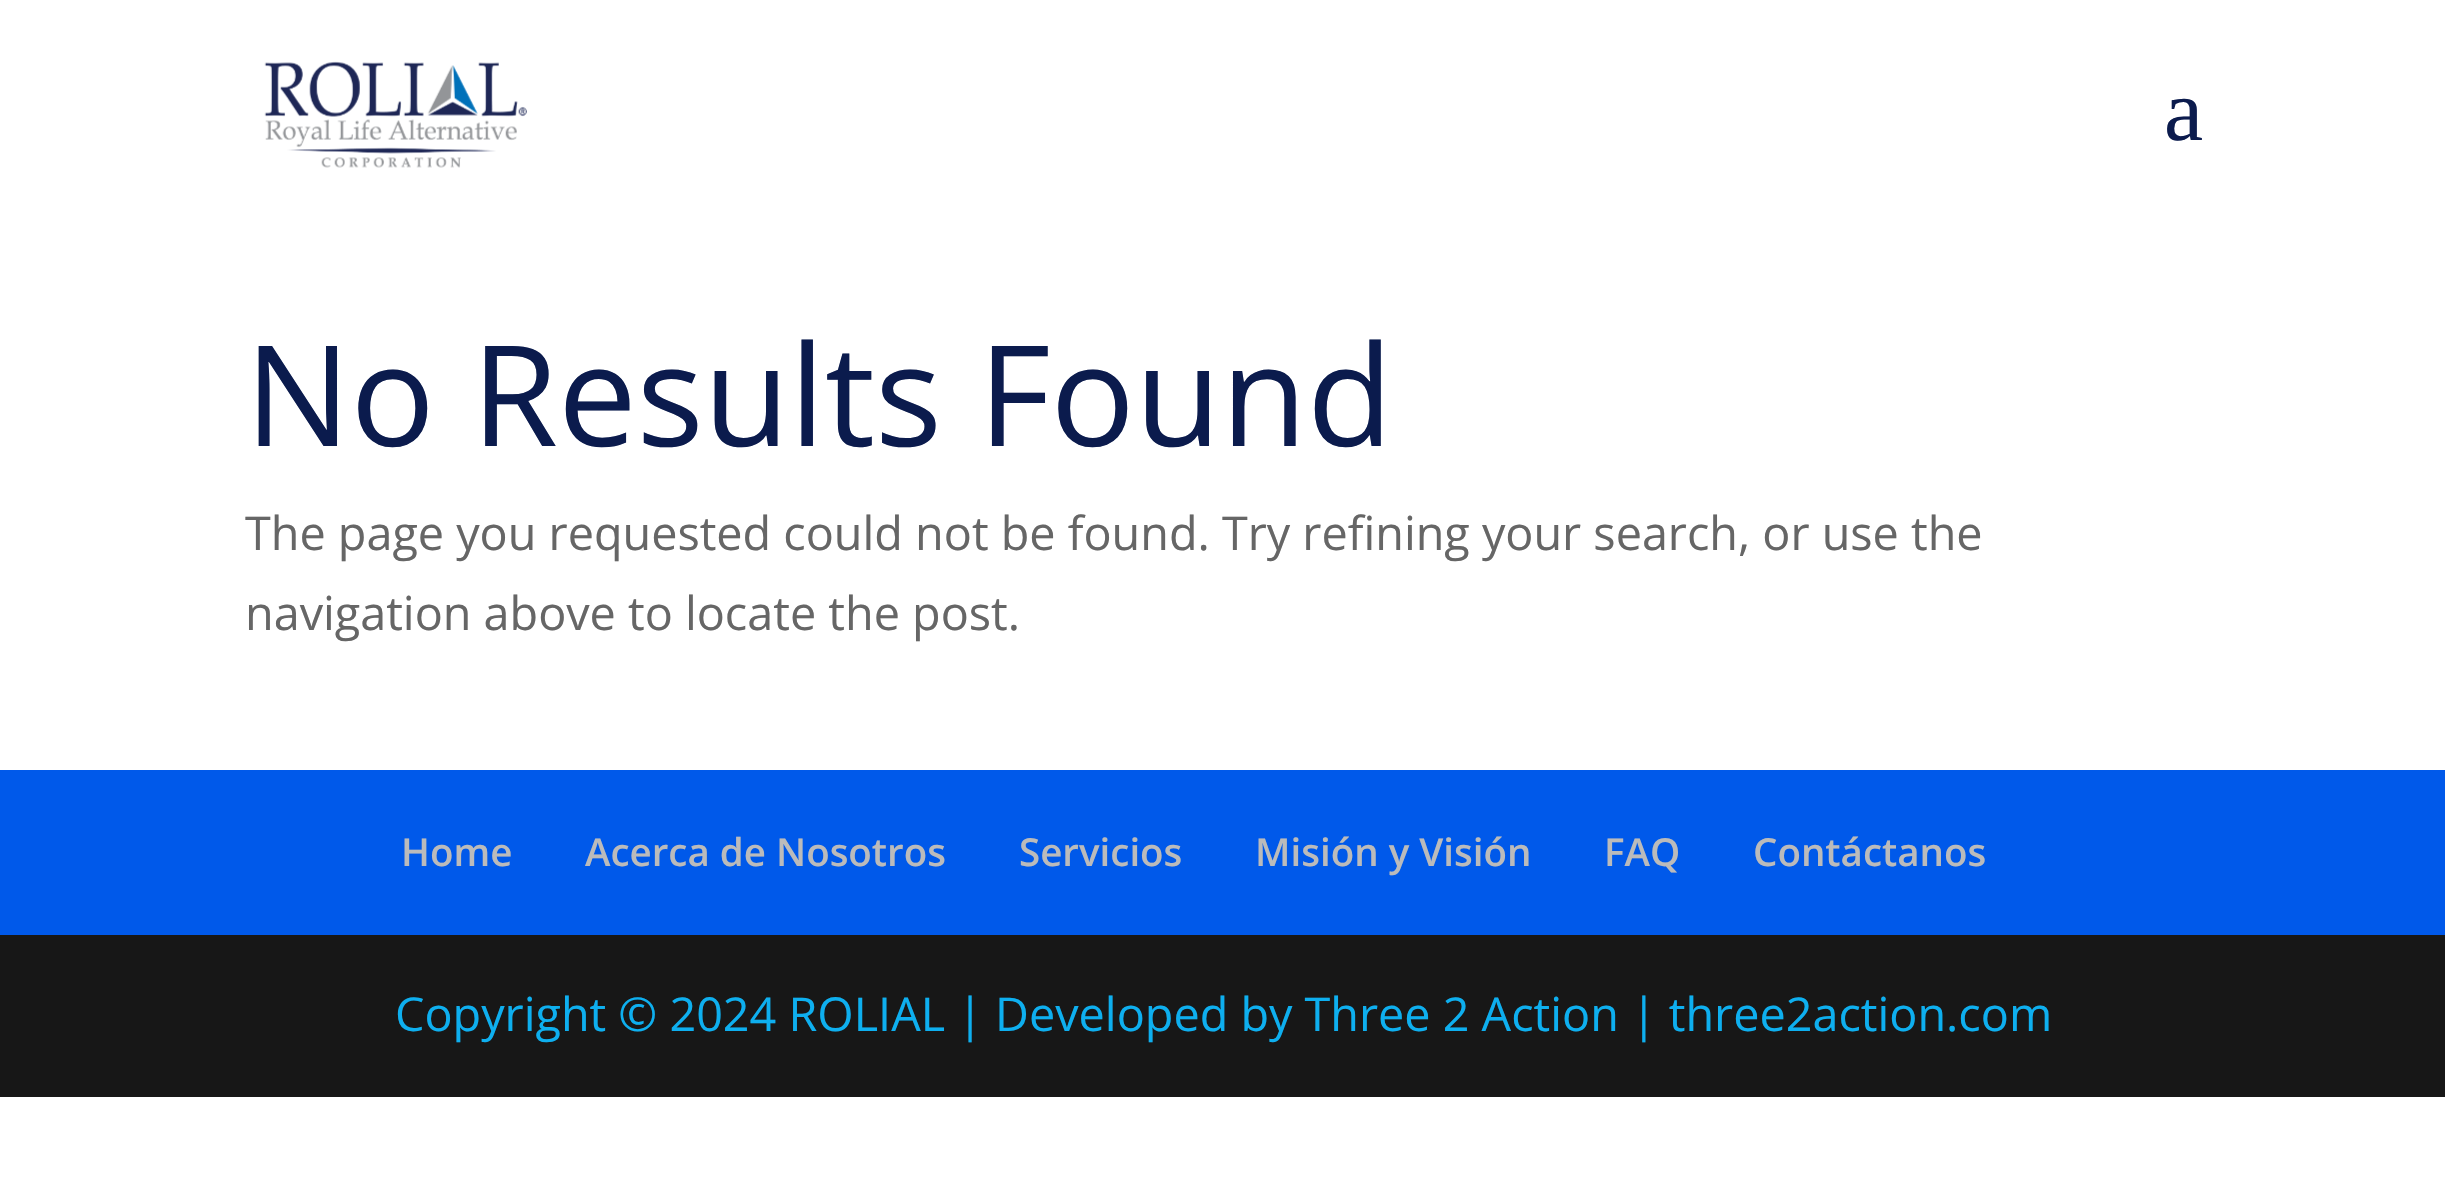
static SkFont makeFont(const char* family, int weight, float size, bool italic = false) {
  SkFontStyle style(weight, SkFontStyle::kNormal_Width,
    italic ? SkFontStyle::kItalic_Slant : SkFontStyle::kUpright_Slant);
  SkFont result(fontMgr->matchFamilyStyle(family, style), size);
  result.setSubpixel(true);
  return result;
}

static void text(SkCanvas* c, const char* s, float x, float y, const SkFont& font, SkColor color) {
  SkPaint ink(SkColor4f::FromColor(color));
  ink.setAntiAlias(true);
  c->drawString(s, x, y, font, ink);
}

static void box(SkCanvas* c, float l, float t, float r, float b, SkColor color) {
  SkPaint ink(SkColor4f::FromColor(color));
  ink.setAntiAlias(true);
  c->drawRect(SkRect::MakeLTRB(l, t, r, b), ink);
}

static void picture(SkCanvas* c, const char* path, float l, float t, float r, float b) {
  auto image = SkImages::DeferredFromEncodedData(SkData::MakeFromFileName(path));
  c->drawImageRect(image, SkRect::MakeLTRB(l, t, r, b), SkSamplingOptions());
}

void draw(SkCanvas* c) {
  SkPaint paint;
  paint.setAntiAlias(true);
  c->clear(0xffffffff);
  picture(c, "img_01.png", 264, 61, 527, 168);
  SkFont face1 = makeFont("Liberation Serif", 400, 88);
  text(c, "a", 2164, 140, face1, 0xff0b1b4d);
  SkFont face2 = makeFont("Open Sans", 400, 140.25f);
  text(c, "No Results Found", 245, 446, face2, 0xff0b1b4d);
  SkFont face3 = makeFont("Open Sans", 400, 46.75f);
  text(c, "The page you requested could not be found. Try refining your search, or use the", 245, 550, face3, 0xff666666);
  text(c, "navigation above to locate the post.", 245, 630, face3, 0xff666666);
  box(c, 0, 770, 2445, 935, 0xff0059ea);
  SkFont face4 = makeFont("Open Sans", 600, 38.5f);
  text(c, "Home", 401, 866, face4, 0xffbbbbbb);
  text(c, "Acerca de Nosotros", 585, 866, face4, 0xffbbbbbb);
  text(c, "Servicios", 1019, 866, face4, 0xffbbbbbb);
  text(c, "Misión y Visión", 1255, 866, face4, 0xffbbbbbb);
  text(c, "FAQ", 1604, 866, face4, 0xffbbbbbb);
  text(c, "Contáctanos", 1753, 866, face4, 0xffbbbbbb);
  box(c, 0, 935, 2445, 1097, 0xff171717);
  text(c, "Copyright © 2024 ROLIAL | Developed by Three 2 Action | three2action.com", 395, 1031, face3, 0xff0eafef);
}
